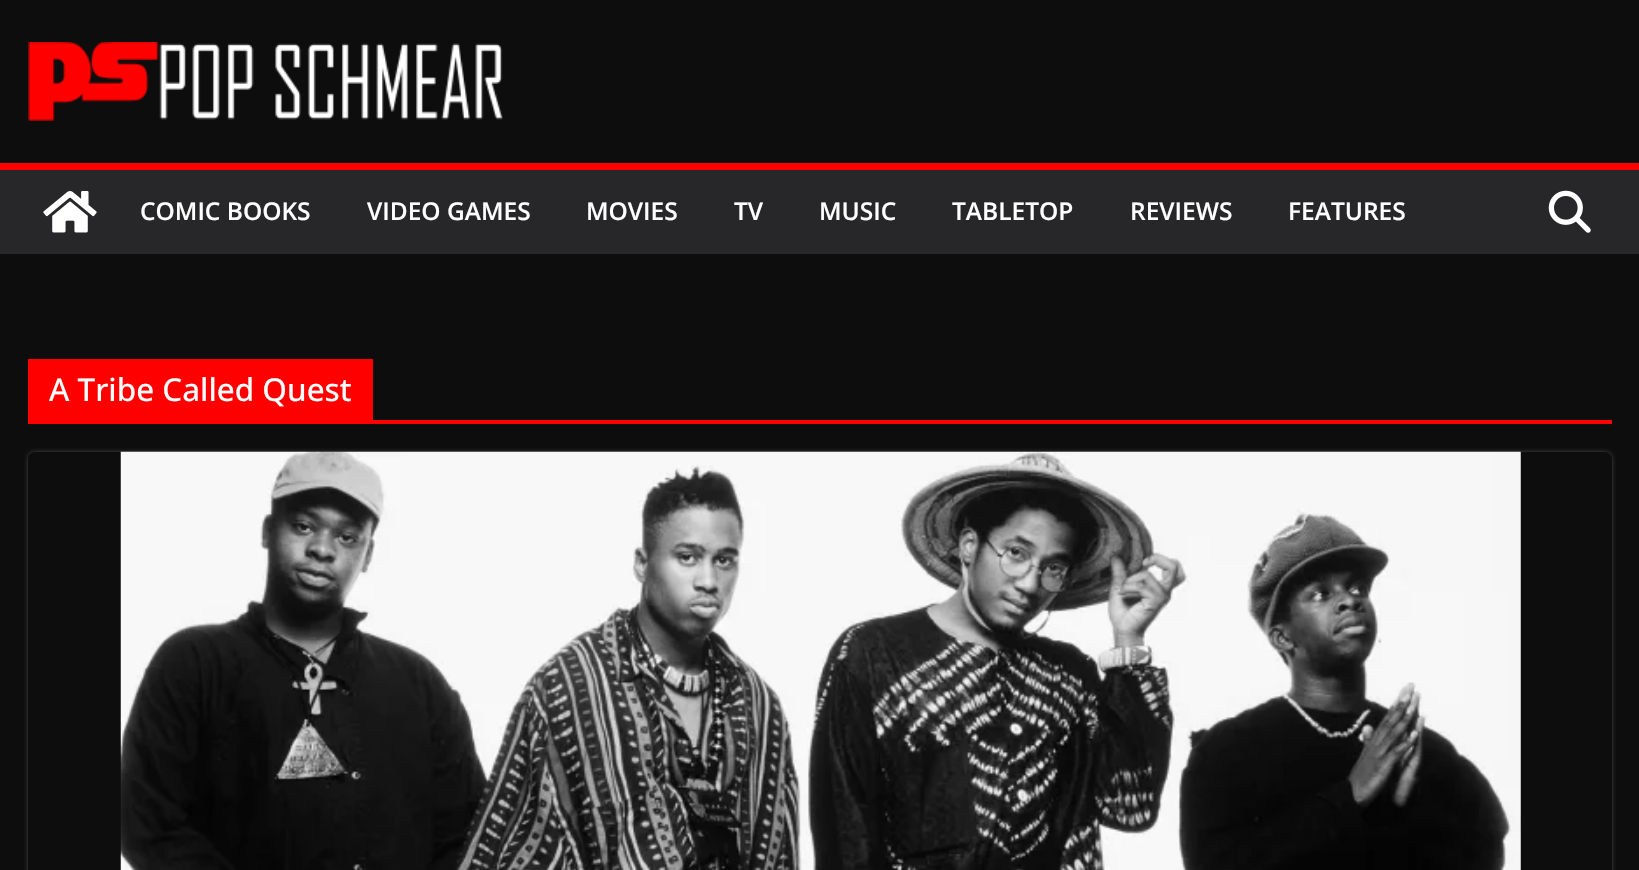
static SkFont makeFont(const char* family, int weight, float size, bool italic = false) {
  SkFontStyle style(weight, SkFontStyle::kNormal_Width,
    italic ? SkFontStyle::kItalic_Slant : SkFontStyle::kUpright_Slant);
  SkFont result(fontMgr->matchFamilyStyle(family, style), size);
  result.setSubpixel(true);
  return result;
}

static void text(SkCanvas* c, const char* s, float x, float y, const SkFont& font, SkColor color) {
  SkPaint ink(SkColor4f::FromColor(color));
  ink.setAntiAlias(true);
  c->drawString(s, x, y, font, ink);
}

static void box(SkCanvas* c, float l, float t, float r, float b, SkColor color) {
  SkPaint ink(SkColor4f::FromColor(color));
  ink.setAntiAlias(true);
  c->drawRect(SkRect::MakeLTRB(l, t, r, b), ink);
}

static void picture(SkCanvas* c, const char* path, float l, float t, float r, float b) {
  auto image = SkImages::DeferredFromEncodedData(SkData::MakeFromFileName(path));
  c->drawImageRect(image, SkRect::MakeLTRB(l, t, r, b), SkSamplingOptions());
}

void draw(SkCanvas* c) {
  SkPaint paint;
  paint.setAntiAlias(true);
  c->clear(0xff0d0d0d);
  picture(c, "img_01.png", 28, 42, 503, 121);
  box(c, 0, 170, 1639, 254, 0xff27272a);
  box(c, 0, 163, 1639, 170, 0xffff0000);
  picture(c, "img_02.png", 43, 191, 97, 233);
  SkFont face1 = makeFont("Open Sans", 600, 24.5f);
  text(c, "COMIC BOOKS", 140, 220, face1, 0xffffffff);
  text(c, "VIDEO GAMES", 367, 220, face1, 0xffffffff);
  text(c, "MOVIES", 586, 220, face1, 0xffffffff);
  text(c, "TV", 734, 220, face1, 0xffffffff);
  text(c, "MUSIC", 819, 220, face1, 0xffffffff);
  text(c, "TABLETOP", 952, 220, face1, 0xffffffff);
  text(c, "REVIEWS", 1130, 220, face1, 0xffffffff);
  text(c, "FEATURES", 1288, 220, face1, 0xffffffff);
  picture(c, "img_03.png", 1548, 190, 1591, 233);
  box(c, 28, 420, 1612, 424, 0xffff0000);
  box(c, 28, 359, 373, 420, 0xffff0000);
  SkFont face2 = makeFont("Open Sans", 500, 31.5f);
  text(c, "A Tribe Called Quest", 49, 401, face2, 0xffffffff);
  c->save();
  c->clipPath(SkPathBuilder(SkPathFillType::kEvenOdd).moveTo(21, 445).lineTo(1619, 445).lineTo(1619, 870).lineTo(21, 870).close().moveTo(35, 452).lineTo(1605, 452).cubicTo(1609, 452, 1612, 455, 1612, 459).lineTo(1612, 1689).cubicTo(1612, 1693, 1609, 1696, 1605, 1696).lineTo(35, 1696).cubicTo(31, 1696, 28, 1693, 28, 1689).lineTo(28, 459).cubicTo(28, 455, 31, 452, 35, 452).close().detach(), true);
  paint.setColor(0x3dffffff);
  paint.setMaskFilter(SkMaskFilter::MakeBlur(kNormal_SkBlurStyle, 2));
  c->drawRoundRect(SkRect::MakeLTRB(28, 452, 1612, 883), 7, 7, paint);
  paint.setMaskFilter(nullptr);
  c->restore();
  picture(c, "img_04.png", 120, 451, 1521, 870);
}
